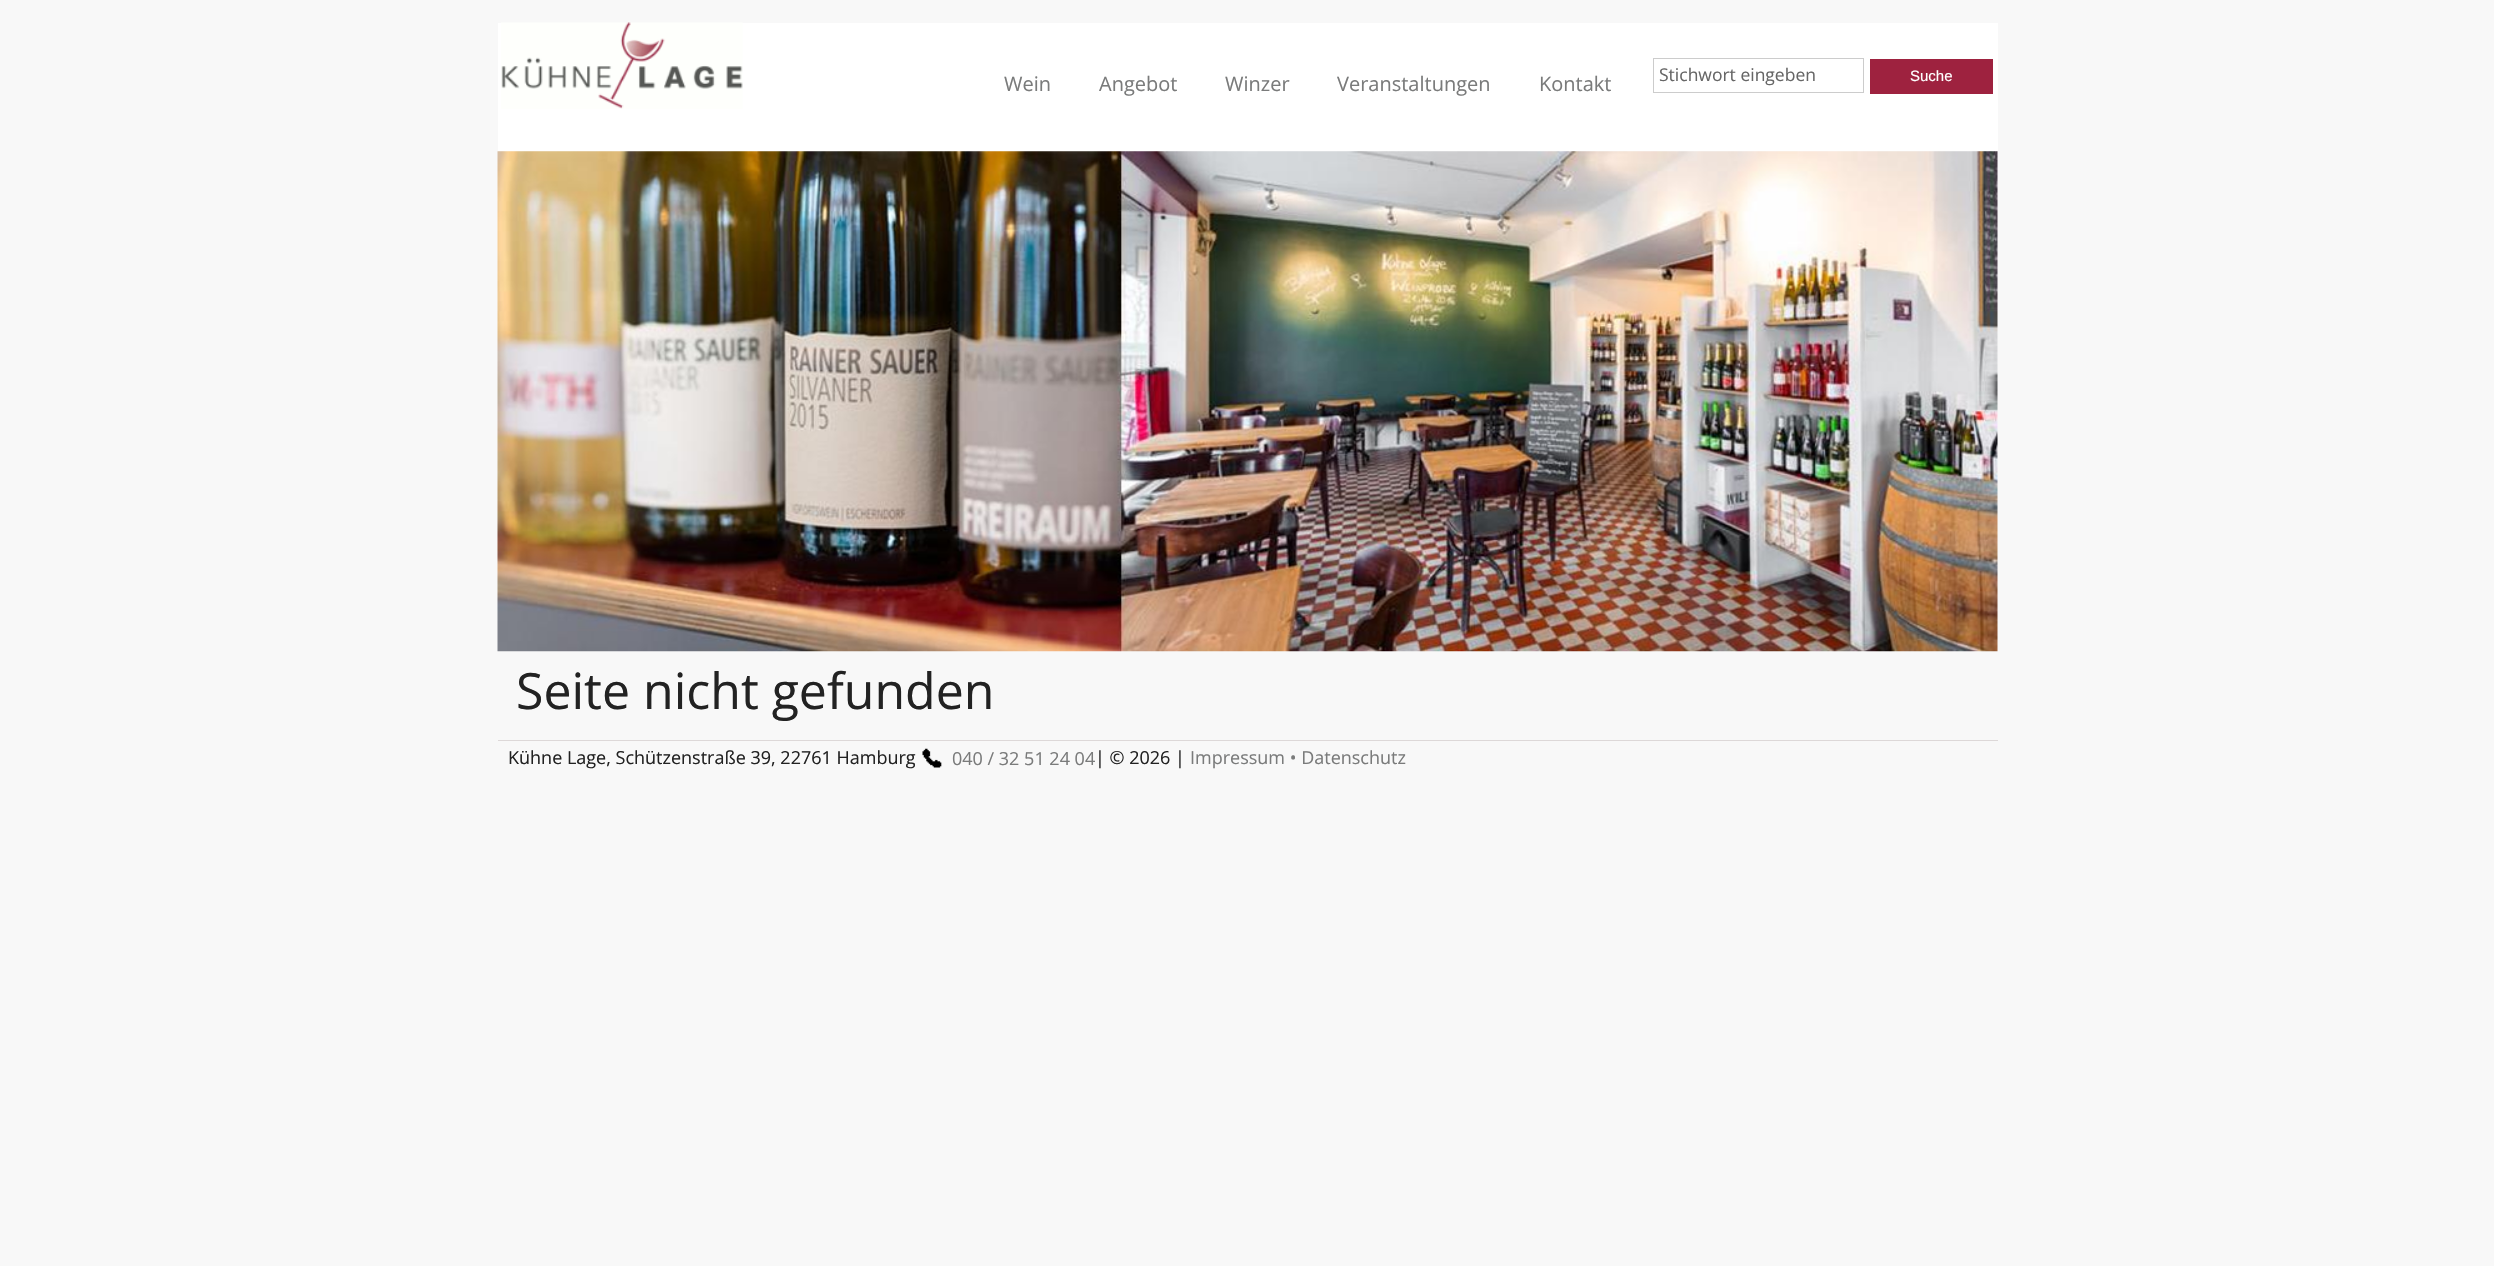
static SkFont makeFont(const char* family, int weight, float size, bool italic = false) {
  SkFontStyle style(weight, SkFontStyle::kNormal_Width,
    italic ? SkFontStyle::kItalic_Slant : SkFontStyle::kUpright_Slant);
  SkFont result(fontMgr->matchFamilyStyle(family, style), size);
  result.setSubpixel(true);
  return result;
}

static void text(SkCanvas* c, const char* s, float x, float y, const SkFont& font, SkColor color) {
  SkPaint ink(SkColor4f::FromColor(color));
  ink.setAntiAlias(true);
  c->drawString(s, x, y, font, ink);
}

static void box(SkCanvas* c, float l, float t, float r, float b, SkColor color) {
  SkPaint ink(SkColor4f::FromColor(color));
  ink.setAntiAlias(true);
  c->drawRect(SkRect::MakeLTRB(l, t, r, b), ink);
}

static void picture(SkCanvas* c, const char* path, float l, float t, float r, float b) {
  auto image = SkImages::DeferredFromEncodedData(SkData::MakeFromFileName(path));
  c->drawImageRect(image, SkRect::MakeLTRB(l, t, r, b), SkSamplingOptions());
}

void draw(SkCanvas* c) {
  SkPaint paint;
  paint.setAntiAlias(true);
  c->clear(0xfff8f8f8);
  box(c, 498, 23, 1998, 151, 0xffffffff);
  picture(c, "img_01.png", 501, 22, 743, 109);
  SkFont face1 = makeFont("Open Sans", 400, 20);
  text(c, "Wein", 1004, 91, face1, 0xff7a7b7b);
  text(c, "Angebot", 1099, 91, face1, 0xff7a7b7b);
  text(c, "Winzer", 1225, 91, face1, 0xff7a7b7b);
  text(c, "Veranstaltungen", 1337, 91, face1, 0xff7a7b7b);
  text(c, "Kontakt", 1539, 91, face1, 0xff7a7b7b);
  paint.setStyle(SkPaint::kStroke_Style);
  paint.setStrokeWidth(1);
  paint.setColor(0xffcccccc);
  c->drawRect(SkRect::MakeLTRB(1653.5f, 58.5f, 1863.5f, 92.5f), paint);
  SkFont face2 = makeFont("Open Sans", 400, 17.5f);
  text(c, "Stichwort eingeben", 1659, 81, face2, 0xff666666);
  box(c, 1870, 59, 1993, 94, 0xff9e223f);
  SkFont face3 = makeFont("Liberation Sans", 400, 15);
  text(c, "Suche", 1910, 81, face3, 0xffffffff);
  picture(c, "img_02.png", 497, 151, 1998, 652);
  SkFont face4 = makeFont("Open Sans", 400, 50);
  text(c, "Seite nicht gefunden", 516, 709, face4, 0xff222222);
  box(c, 498, 740, 1998, 741, 0xffddd8d8);
  SkFont face5 = makeFont("Open Sans", 400, 18);
  text(c, "Kühne Lage, Schützenstraße 39, 22761 Hamburg", 508, 764, face5, 0xff222222);
  picture(c, "img_03.png", 922, 748, 942, 768);
  text(c, "040 / 32 51 24 04", 952, 765, face5, 0xff7a7b7b);
  text(c, "| © 2026 |", 1095, 764, face5, 0xff222222);
  text(c, "Impressum • Datenschutz", 1190, 764, face5, 0xff7a7b7b);
}
